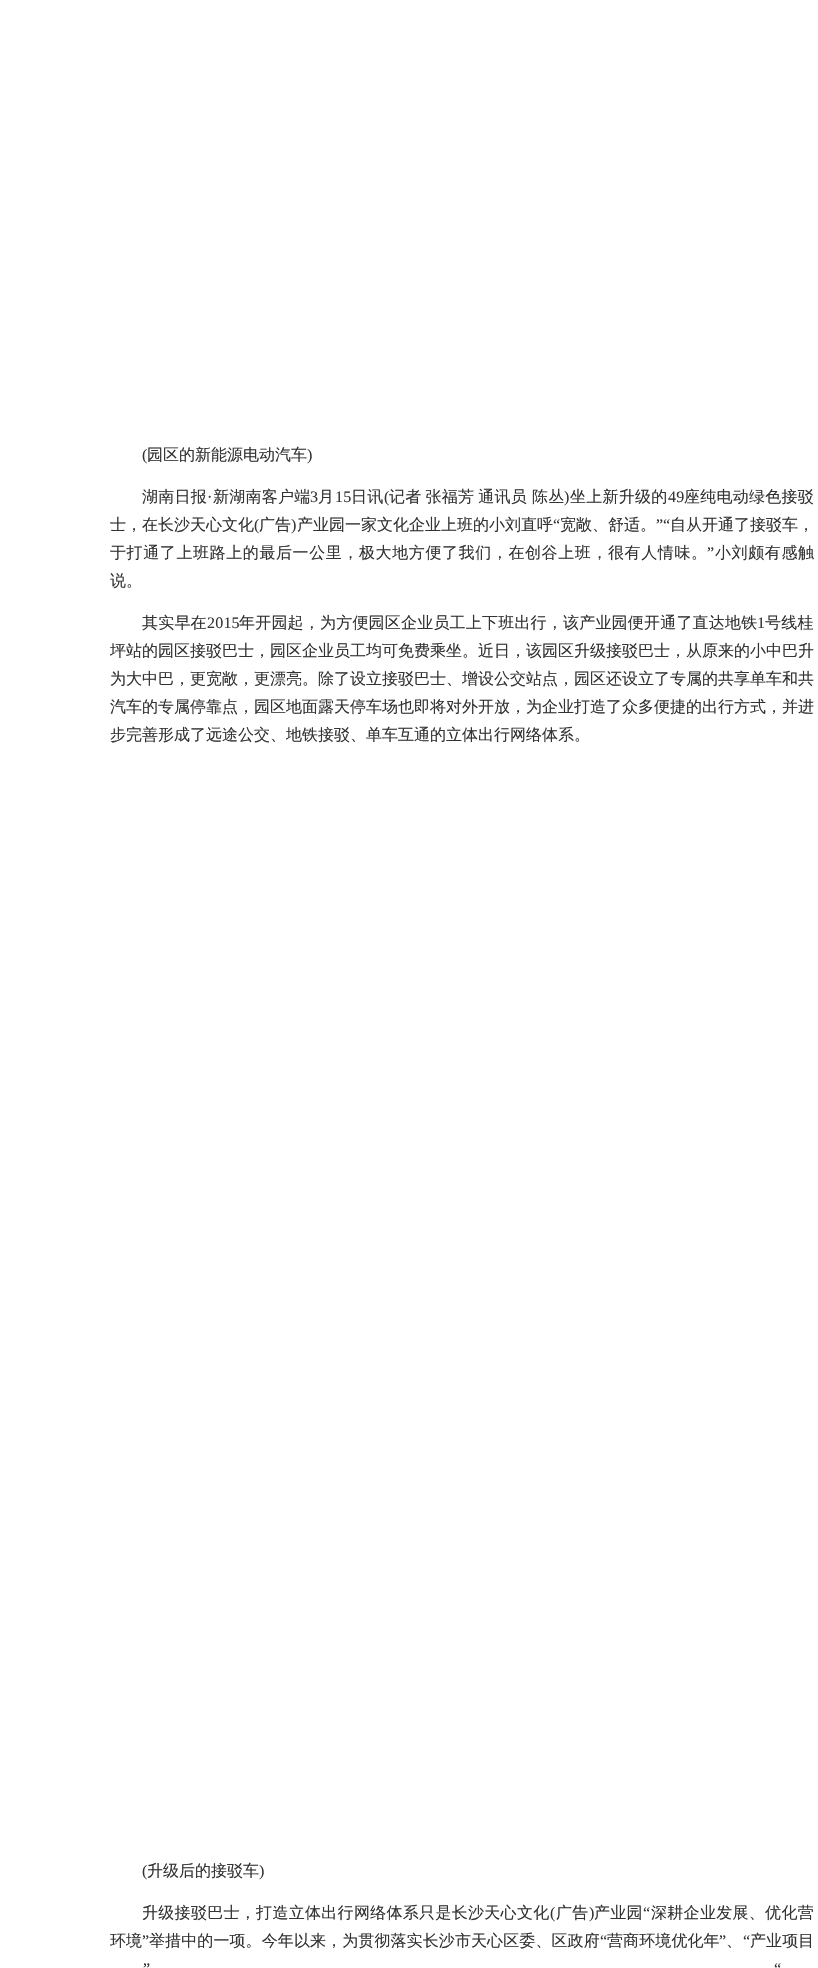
static SkFont makeFont(const char* family, int weight, float size, bool italic = false) {
  SkFontStyle style(weight, SkFontStyle::kNormal_Width,
    italic ? SkFontStyle::kItalic_Slant : SkFontStyle::kUpright_Slant);
  SkFont result(fontMgr->matchFamilyStyle(family, style), size);
  result.setSubpixel(true);
  return result;
}

static void text(SkCanvas* c, const char* s, float x, float y, const SkFont& font, SkColor color) {
  SkPaint ink(SkColor4f::FromColor(color));
  ink.setAntiAlias(true);
  c->drawString(s, x, y, font, ink);
}

static void spacedText(SkCanvas* c, const char* s, float x, float y, const SkFont& font, const SkPaint& ink, float letter, float word) {
  std::vector<SkGlyphID> glyphs(font.countText(s, strlen(s), SkTextEncoding::kUTF8));
  std::vector<float> xs(glyphs.size());
  font.textToGlyphs(s, strlen(s), SkTextEncoding::kUTF8, glyphs);
  font.getXPos(glyphs, xs, x);
  float extra = 0;
  for (size_t i = 0; i < glyphs.size(); i++) {
    xs[i] += extra;
    extra += letter + word * (glyphs[i] == font.unicharToGlyph(' '));
  }
  c->drawTextBlob(SkTextBlob::MakeFromPosHGlyphs(glyphs, xs, y, font), 0, 0, ink);
}

void draw(SkCanvas* c) {
  SkPaint paint;
  paint.setAntiAlias(true);
  c->clear(0xffffffff);
  SkFont face1 = makeFont("Liberation Serif", 400, 16);
  text(c, "(", 142, 460, face1, 0xff333333);
  SkFont face2 = makeFont("WenQuanYi Zen Hei", 500, 16);
  text(c, "园区的新能源电动汽车", 147, 460, face2, 0xff333333);
  text(c, ")", 307, 460, face1, 0xff333333);
  paint.setColor(0xff333333);
  spacedText(c, "湖南日报", 142, 502, face2, paint, 0.25f, 0);
  spacedText(c, "·", 207, 502, face1, paint, 0.25f, 0);
  spacedText(c, "新湖南客户端", 213, 502, face2, paint, 0.25f, 0);
  spacedText(c, "3", 310, 502, face1, paint, 0.25f, 0);
  spacedText(c, "月", 318, 502, face2, paint, 0.25f, 0);
  spacedText(c, "15", 335, 502, face1, paint, 0.25f, 0);
  spacedText(c, "日讯", 351, 502, face2, paint, 0.25f, 0);
  spacedText(c, "(", 384, 502, face1, paint, 0.25f, 0);
  spacedText(c, "记者 张福芳 通讯员", 389, 502, face2, paint, 0.25f, -1);
  spacedText(c, "陈丛", 532, 502, face2, paint, 0.25f, 0);
  spacedText(c, ")", 564, 502, face1, paint, 0.25f, 0);
  spacedText(c, "坐上新升级的", 570, 502, face2, paint, 0.25f, 0);
  spacedText(c, "49", 668, 502, face1, paint, 0.25f, 0);
  spacedText(c, "座纯电动绿色接驳", 684, 502, face2, paint, 0.25f, 0);
  text(c, "士，在长沙天心文化", 110, 530, face2, 0xff333333);
  text(c, "(", 254, 530, face1, 0xff333333);
  text(c, "广告", 259, 530, face2, 0xff333333);
  text(c, ")", 291, 530, face1, 0xff333333);
  text(c, "产业园一家文化企业上班的小刘直呼", 297, 530, face2, 0xff333333);
  text(c, "“", 553, 530, face1, 0xff333333);
  text(c, "宽敞、舒适。", 560, 530, face2, 0xff333333);
  text(c, "”“", 656, 530, face1, 0xff333333);
  text(c, "自从开通了接驳车，", 670, 530, face2, 0xff333333);
  spacedText(c, "于打通了上班路上的最后一公里，极大地方便了我们，在创谷上班，很有人情味。", 110, 558, face2, paint, 0.6f, 0);
  spacedText(c, "”", 707, 558, face1, paint, 0.6f, 0);
  spacedText(c, "小刘颇有感触", 715, 558, face2, paint, 0.6f, 0);
  text(c, "说。", 110, 586, face2, 0xff333333);
  spacedText(c, "其实早在", 142, 628, face2, paint, 0.2f, 0);
  spacedText(c, "2015", 207, 628, face1, paint, 0.2f, 0);
  spacedText(c, "年开园起，为方便园区企业员工上下班出行，该产业园便开通了直达地铁", 239, 628, face2, paint, 0.2f, 0);
  spacedText(c, "1", 757, 628, face1, paint, 0.2f, 0);
  spacedText(c, "号线桂", 765, 628, face2, paint, 0.2f, 0);
  text(c, "坪站的园区接驳巴士，园区企业员工均可免费乘坐。近日，该园区升级接驳巴士，从原来的小中巴升", 110, 656, face2, 0xff333333);
  text(c, "为大中巴，更宽敞，更漂亮。除了设立接驳巴士、增设公交站点，园区还设立了专属的共享单车和共", 110, 684, face2, 0xff333333);
  text(c, "汽车的专属停靠点，园区地面露天停车场也即将对外开放，为企业打造了众多便捷的出行方式，并进", 110, 712, face2, 0xff333333);
  text(c, "步完善形成了远途公交、地铁接驳、单车互通的立体出行网络体系。", 110, 740, face2, 0xff333333);
  text(c, "(", 142, 1876, face1, 0xff333333);
  text(c, "升级后的接驳车", 147, 1876, face2, 0xff333333);
  text(c, ")", 259, 1876, face1, 0xff333333);
  spacedText(c, "升级接驳巴士，打造立体出行网络体系只是长沙天心文化", 142, 1918, face2, paint, 0.3f, 0);
  spacedText(c, "(", 550, 1918, face1, paint, 0.3f, 0);
  spacedText(c, "广告", 556, 1918, face2, paint, 0.3f, 0);
  spacedText(c, ")", 589, 1918, face1, paint, 0.3f, 0);
  spacedText(c, "产业园", 594, 1918, face2, paint, 0.3f, 0);
  spacedText(c, "“", 643, 1918, face1, paint, 0.3f, 0);
  spacedText(c, "深耕企业发展、优化营", 651, 1918, face2, paint, 0.3f, 0);
  spacedText(c, "环境", 110, 1946, face2, paint, 0.1f, 0);
  spacedText(c, "”", 142, 1946, face1, paint, 0.1f, 0);
  spacedText(c, "举措中的一项。今年以来，为贯彻落实长沙市天心区委、区政府", 149, 1946, face2, paint, 0.1f, 0);
  spacedText(c, "“", 600, 1946, face1, paint, 0.1f, 0);
  spacedText(c, "营商环境优化年", 607, 1946, face2, paint, 0.1f, 0);
  spacedText(c, "”", 719, 1946, face1, paint, 0.1f, 0);
  spacedText(c, "“", 743, 1946, face1, paint, 0.1f, 0);
  spacedText(c, "产业项目", 750, 1946, face2, paint, 0.1f, 0);
  spacedText(c, "、", 726, 1946, face2, paint, 0.1f, 0);
  text(c, "”", 143, 1974, face1, 0xff333333);
  text(c, "“", 774, 1974, face1, 0xff333333);
}
